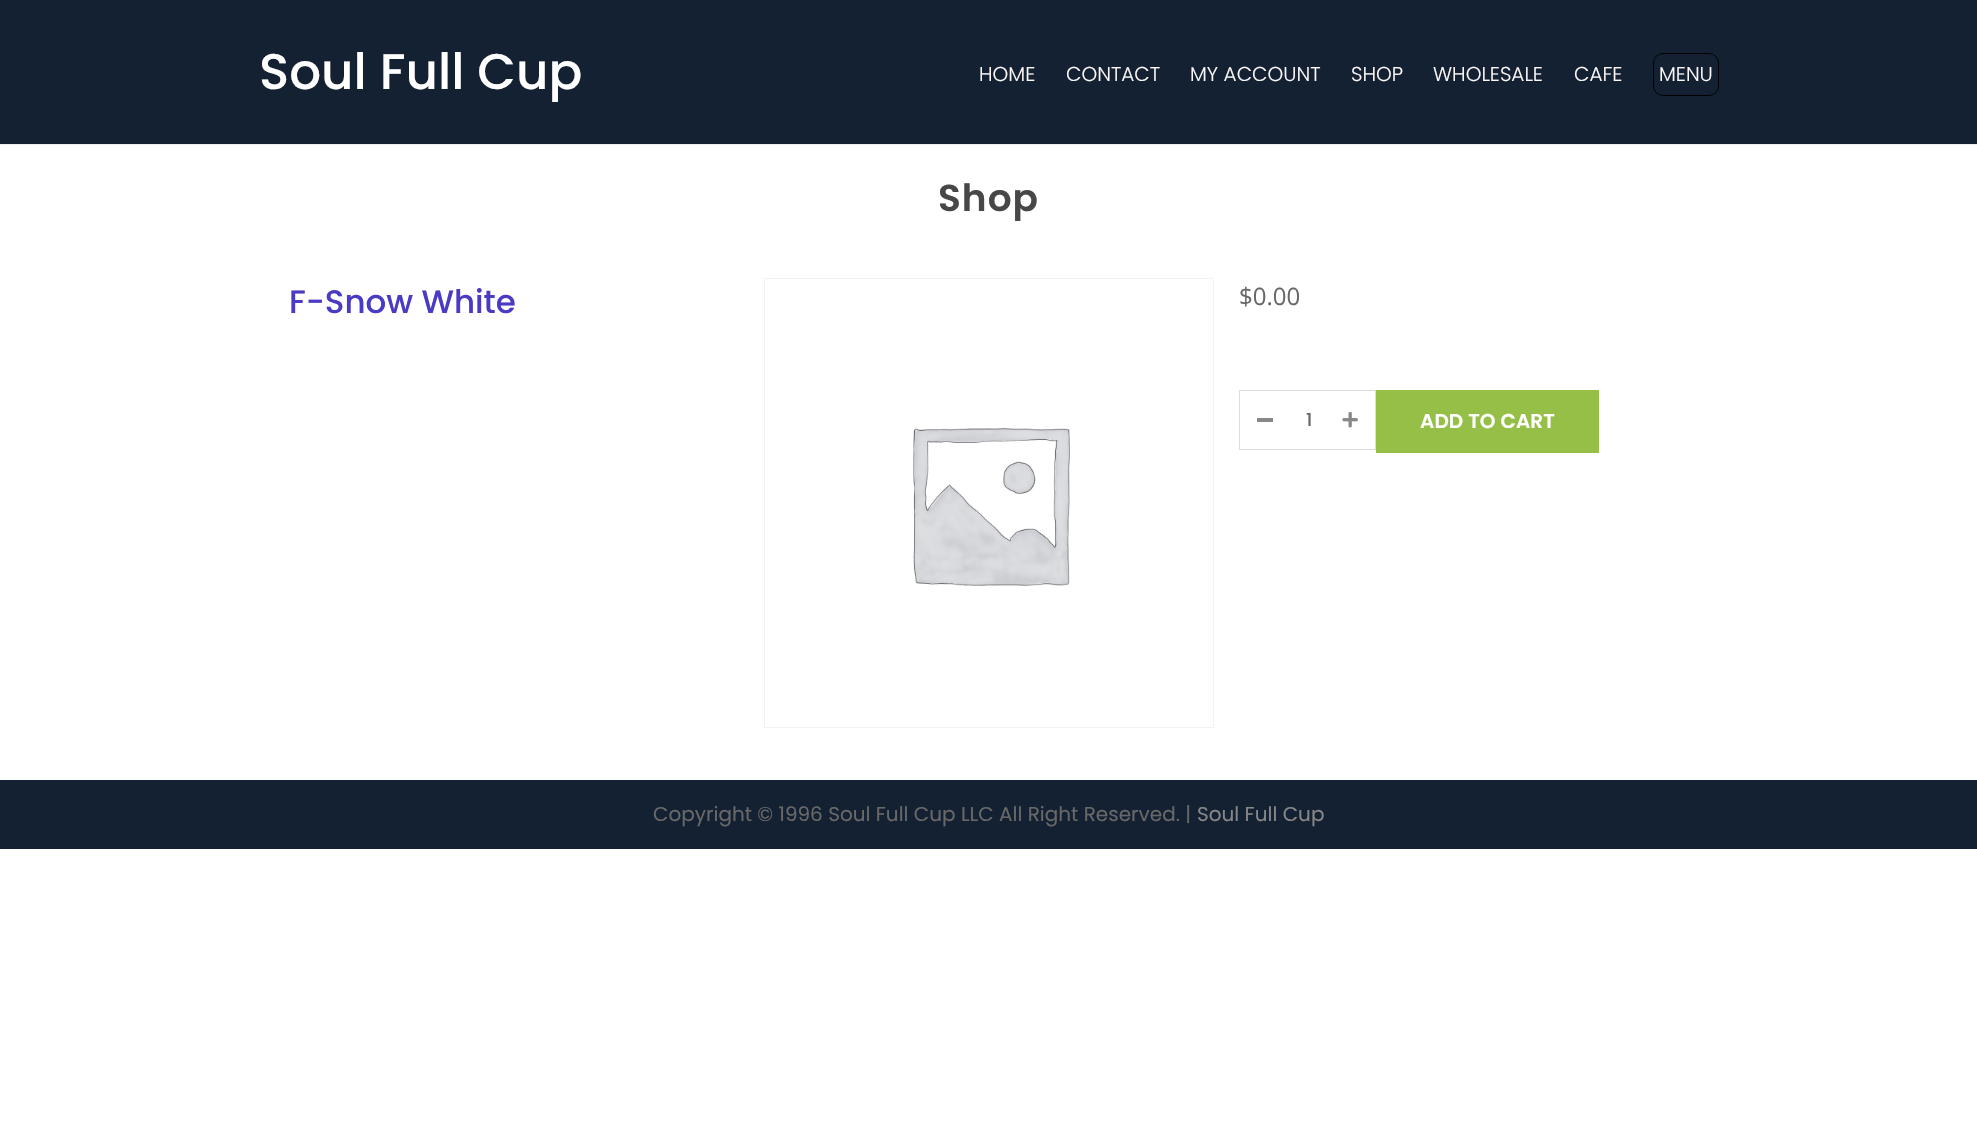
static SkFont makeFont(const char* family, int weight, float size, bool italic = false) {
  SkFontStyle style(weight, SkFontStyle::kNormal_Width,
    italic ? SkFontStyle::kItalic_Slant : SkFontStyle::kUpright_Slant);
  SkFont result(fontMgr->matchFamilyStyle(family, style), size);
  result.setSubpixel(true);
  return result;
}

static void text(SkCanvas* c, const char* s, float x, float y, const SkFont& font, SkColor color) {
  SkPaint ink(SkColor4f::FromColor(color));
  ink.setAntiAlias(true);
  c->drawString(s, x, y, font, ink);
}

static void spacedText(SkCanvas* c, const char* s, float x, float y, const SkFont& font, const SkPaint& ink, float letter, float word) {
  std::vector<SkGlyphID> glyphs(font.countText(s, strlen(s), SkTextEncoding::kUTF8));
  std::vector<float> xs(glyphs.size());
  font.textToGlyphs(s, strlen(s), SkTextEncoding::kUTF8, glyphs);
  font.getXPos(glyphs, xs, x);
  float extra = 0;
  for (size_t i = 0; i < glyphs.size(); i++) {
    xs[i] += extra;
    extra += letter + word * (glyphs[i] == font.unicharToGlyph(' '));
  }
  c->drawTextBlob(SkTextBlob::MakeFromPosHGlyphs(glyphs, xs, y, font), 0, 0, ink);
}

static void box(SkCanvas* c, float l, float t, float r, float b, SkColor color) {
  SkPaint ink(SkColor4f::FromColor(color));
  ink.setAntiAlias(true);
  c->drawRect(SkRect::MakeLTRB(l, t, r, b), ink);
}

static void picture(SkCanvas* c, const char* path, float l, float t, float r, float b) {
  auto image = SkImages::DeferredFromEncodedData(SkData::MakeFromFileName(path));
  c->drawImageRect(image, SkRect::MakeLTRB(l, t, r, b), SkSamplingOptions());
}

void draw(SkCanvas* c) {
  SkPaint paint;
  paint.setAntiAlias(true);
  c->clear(0xffffffff);
  box(c, 0, 144, 1977, 145, 0xffededed);
  box(c, 0, 0, 1977, 144, 0xff142132);
  SkFont face1 = makeFont("Poppins", 500, 50);
  text(c, "Soul Full Cup", 259, 89, face1, 0xffffffff);
  SkFont face2 = makeFont("Poppins", 300, 20);
  text(c, "HOME", 979, 81, face2, 0xfffdf9f9);
  text(c, "CONTACT", 1066, 81, face2, 0xfffdf9f9);
  text(c, "MY ACCOUNT", 1190, 81, face2, 0xfffdf9f9);
  text(c, "SHOP", 1351, 81, face2, 0xfffdf9f9);
  text(c, "WHOLESALE", 1433, 81, face2, 0xfffdf9f9);
  text(c, "CAFE", 1574, 81, face2, 0xfffdf9f9);
  paint.setStyle(SkPaint::kStroke_Style);
  paint.setStrokeWidth(1);
  paint.setColor(0xff000000);
  c->drawRoundRect(SkRect::MakeLTRB(1653.5f, 53.5f, 1718.5f, 95.5f), 9.5f, 9.5f, paint);
  text(c, "MENU", 1659, 81, face2, 0xfffdf9f9);
  SkFont face3 = makeFont("Poppins", 600, 37.5f);
  paint.setStyle(SkPaint::kFill_Style);
  paint.setColor(0xff474747);
  spacedText(c, "Shop", 938, 211, face3, paint, 1, 0);
  SkFont face4 = makeFont("Poppins", 500, 32.5f);
  text(c, "F-Snow White", 289, 313, face4, 0xff4a3bc4);
  paint.setStyle(SkPaint::kStroke_Style);
  paint.setColor(0xfff2f2f2);
  c->drawRect(SkRect::MakeLTRB(764.5f, 278.5f, 1213.5f, 727.5f), paint);
  picture(c, "img_01.png", 913, 428, 1070, 586);
  SkFont face5 = makeFont("Open Sans", 400, 24);
  text(c, "$0.00", 1239, 305, face5, 0xff686868);
  paint.setColor(0xffdcdcdc);
  c->drawRect(SkRect::MakeLTRB(1239.5f, 390.5f, 1375.5f, 449.5f), paint);
  box(c, 1257, 418, 1273, 422, 0xff878787);
  picture(c, "img_02.png", 1342, 412, 1358, 428);
  SkFont face6 = makeFont("Poppins", 500, 18);
  text(c, "1", 1306, 426, face6, 0xff686868);
  box(c, 1376, 390, 1599, 453, 0xff96bf48);
  SkFont face7 = makeFont("Poppins", 600, 20);
  paint.setStyle(SkPaint::kFill_Style);
  paint.setColor(0xffffffff);
  spacedText(c, "ADD TO CART", 1420, 428, face7, paint, 0.1f, 0);
  box(c, 0, 780, 1977, 849, 0xff142132);
  SkFont face8 = makeFont("Poppins", 400, 20);
  text(c, "Copyright © 1996 Soul Full Cup LLC All Right Reserved. |", 653, 821, face8, 0xff686868);
  text(c, "Soul Full Cup", 1197, 821, face8, 0xff878787);
}
